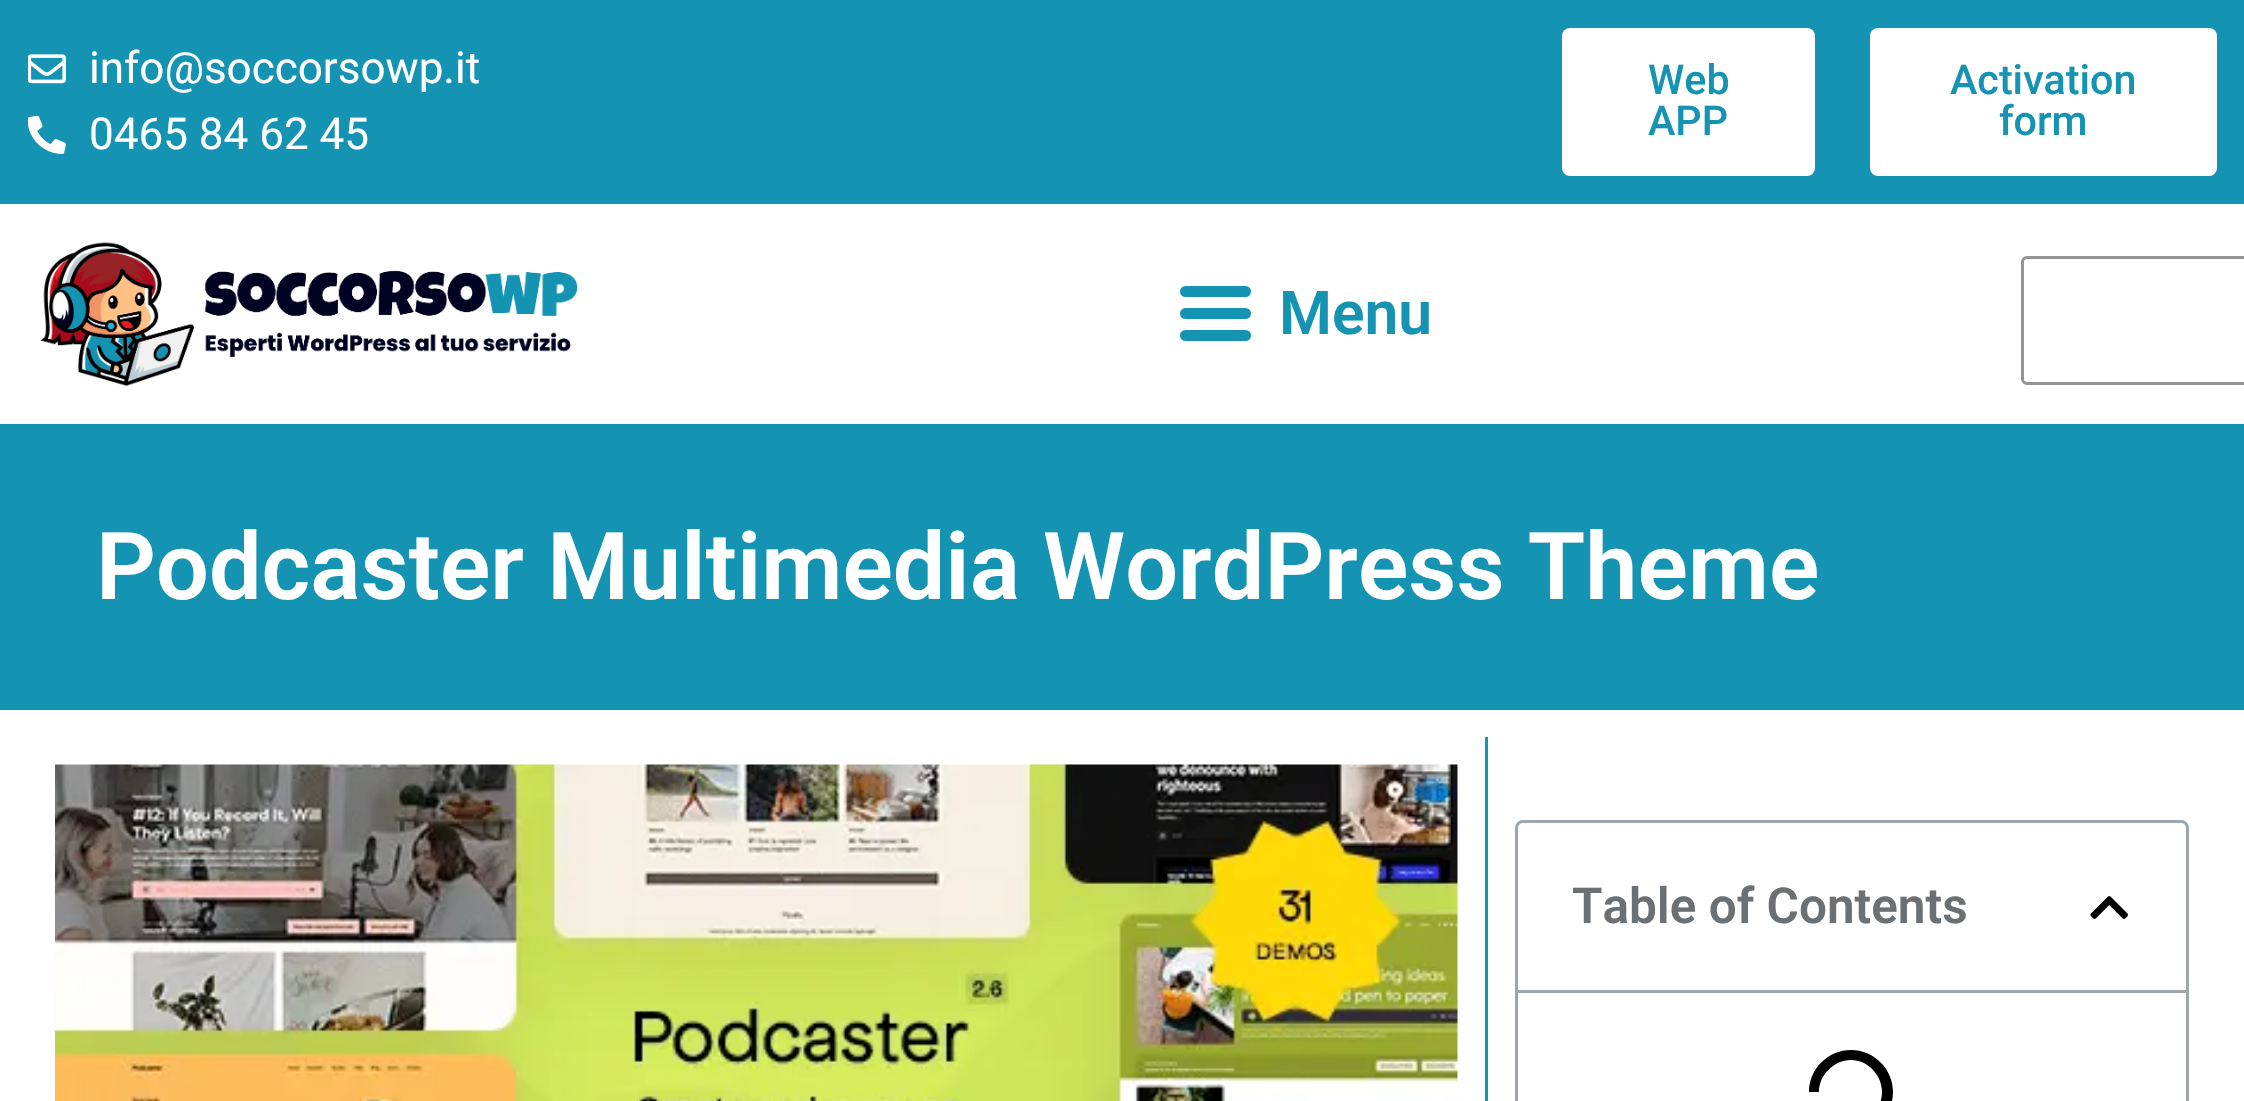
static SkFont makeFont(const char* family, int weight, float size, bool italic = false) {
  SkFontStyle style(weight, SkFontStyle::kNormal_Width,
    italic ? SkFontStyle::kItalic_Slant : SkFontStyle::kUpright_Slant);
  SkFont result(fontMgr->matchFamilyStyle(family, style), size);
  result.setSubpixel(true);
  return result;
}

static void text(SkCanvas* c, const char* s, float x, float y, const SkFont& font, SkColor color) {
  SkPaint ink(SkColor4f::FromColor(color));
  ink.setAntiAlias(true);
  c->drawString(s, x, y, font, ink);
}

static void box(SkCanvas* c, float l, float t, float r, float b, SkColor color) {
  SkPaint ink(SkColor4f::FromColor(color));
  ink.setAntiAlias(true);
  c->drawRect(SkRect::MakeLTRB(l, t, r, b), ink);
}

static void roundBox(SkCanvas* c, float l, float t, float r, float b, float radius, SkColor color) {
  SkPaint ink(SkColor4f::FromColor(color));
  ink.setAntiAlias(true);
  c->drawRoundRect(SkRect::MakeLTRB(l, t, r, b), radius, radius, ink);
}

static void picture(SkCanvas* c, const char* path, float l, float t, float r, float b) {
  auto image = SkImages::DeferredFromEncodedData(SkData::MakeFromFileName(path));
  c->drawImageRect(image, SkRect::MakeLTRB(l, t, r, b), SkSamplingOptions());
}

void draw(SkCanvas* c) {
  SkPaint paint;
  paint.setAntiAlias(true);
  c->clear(0xffffffff);
  box(c, 0, 0, 2244, 204, 0xff1493b3);
  picture(c, "img_01.png", 28, 54, 66, 84);
  SkFont face1 = makeFont("Roboto", 400, 44);
  text(c, "info@soccorsowp.it", 89, 83, face1, 0xffffffff);
  picture(c, "img_02.png", 28, 116, 66, 154);
  text(c, "0465 84 62 45", 89, 149, face1, 0xffffffff);
  roundBox(c, 1562, 28, 1815, 176, 8, 0xffffffff);
  SkFont face2 = makeFont("Roboto", 500, 41.25f);
  text(c, "Web", 1648, 94, face2, 0xff1493b3);
  text(c, "APP", 1648, 135, face2, 0xff1493b3);
  roundBox(c, 1870, 28, 2217, 176, 8, 0xffffffff);
  text(c, "Activation", 1950, 94, face2, 0xff1493b3);
  text(c, "form", 1999, 135, face2, 0xff1493b3);
  picture(c, "img_03.png", 40, 242, 578, 387);
  roundBox(c, 1180, 308, 1251, 319, 5.5f, 0xff1493b3);
  roundBox(c, 1180, 286, 1251, 297, 5.5f, 0xff1493b3);
  roundBox(c, 1180, 330, 1251, 341, 5.5f, 0xff1493b3);
  SkFont face3 = makeFont("Roboto", 600, 60.5f);
  text(c, "Menu", 1279, 334, face3, 0xff1493b3);
  paint.setStyle(SkPaint::kStroke_Style);
  paint.setStrokeWidth(3);
  paint.setColor(0xff949494);
  c->drawRoundRect(SkRect::MakeLTRB(2022.5f, 257.5f, 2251.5f, 383.5f), 4.5f, 4.5f, paint);
  box(c, 0, 424, 2244, 710, 0xff1493b3);
  SkFont face4 = makeFont("Roboto", 600, 93.5f);
  text(c, "Podcaster Multimedia WordPress Theme", 96, 599, face4, 0xffffffff);
  box(c, 1485, 737, 1488, 1101, 0xff1493b3);
  picture(c, "img_04.png", 55, 764, 1458, 1101);
  paint.setColor(0xff9da5ae);
  c->drawRoundRect(SkRect::MakeLTRB(1516.5f, 821.5f, 2187.5f, 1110.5f), 6.5f, 6.5f, paint);
  box(c, 1518, 990, 2186, 993, 0xff9da5ae);
  SkFont face5 = makeFont("Roboto", 600, 49.5f);
  text(c, "Table of Contents", 1572, 923, face5, 0xff6a7074);
  picture(c, "img_05.png", 2090, 896, 2128, 919);
  paint.setStyle(SkPaint::kFill_Style);
  paint.setColor(0xff000000);
  c->drawPath(SkPathBuilder().moveTo(1851, 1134).lineTo(1851, 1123).cubicTo(1868, 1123, 1882, 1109, 1882, 1092).cubicTo(1882, 1075, 1868, 1060, 1851, 1060).cubicTo(1834, 1060, 1819, 1075, 1819, 1092).lineTo(1809, 1092).cubicTo(1809, 1069, 1828, 1050, 1851, 1050).cubicTo(1874, 1050, 1893, 1069, 1893, 1092).cubicTo(1893, 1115, 1874, 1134, 1851, 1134).close().detach(), paint);
}
